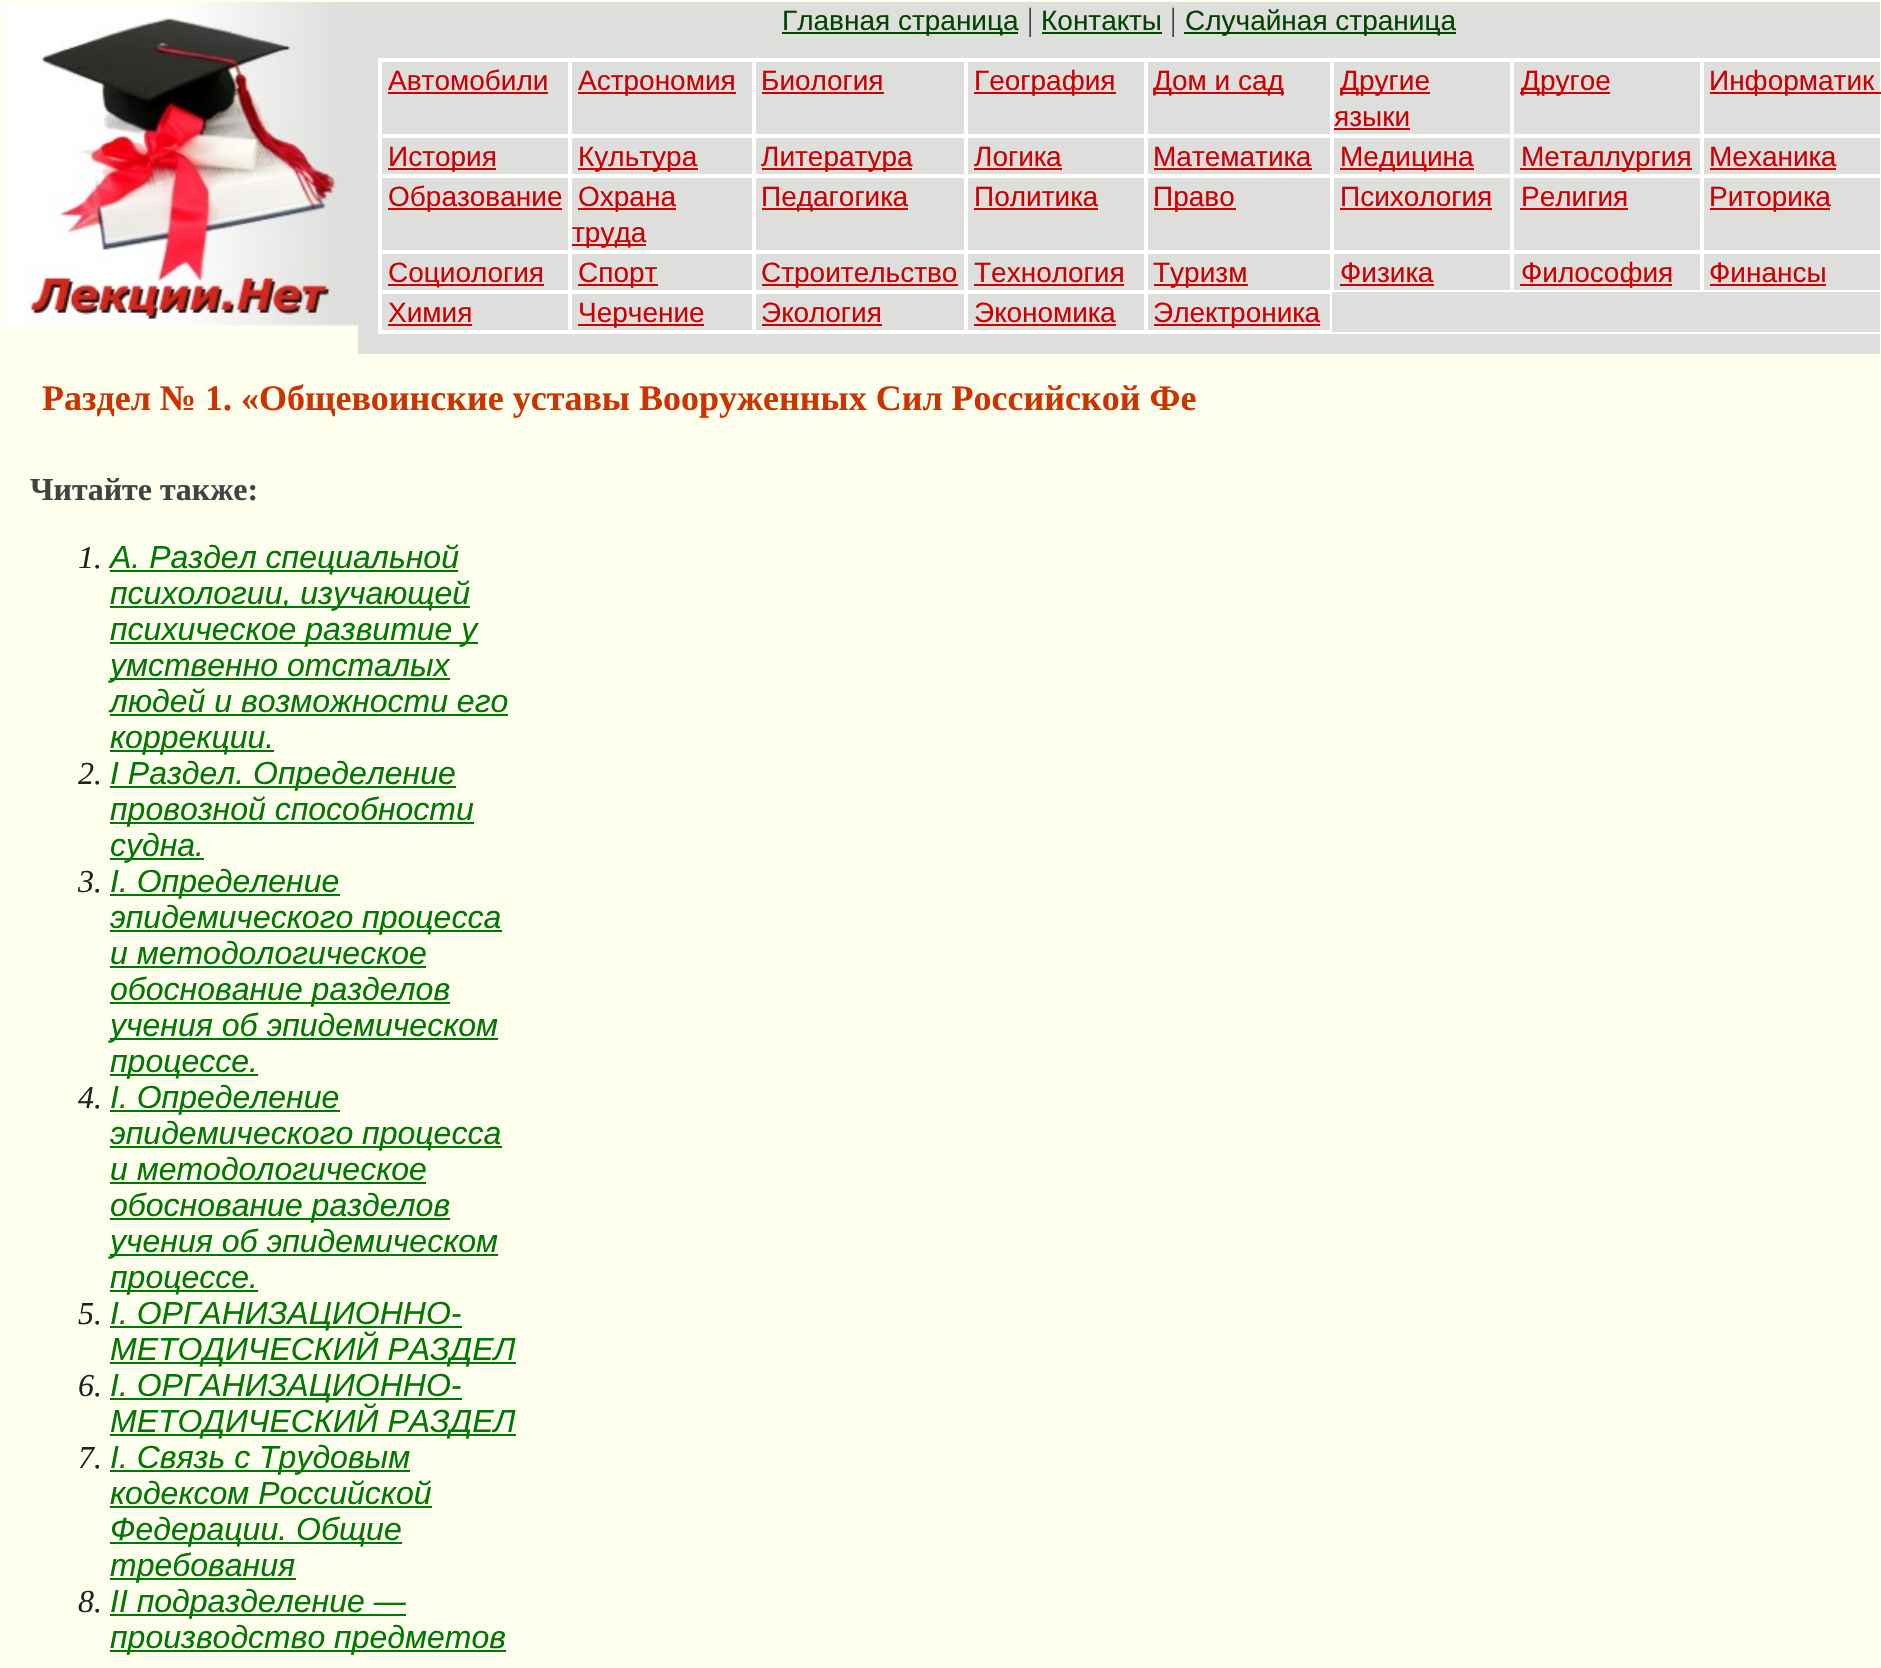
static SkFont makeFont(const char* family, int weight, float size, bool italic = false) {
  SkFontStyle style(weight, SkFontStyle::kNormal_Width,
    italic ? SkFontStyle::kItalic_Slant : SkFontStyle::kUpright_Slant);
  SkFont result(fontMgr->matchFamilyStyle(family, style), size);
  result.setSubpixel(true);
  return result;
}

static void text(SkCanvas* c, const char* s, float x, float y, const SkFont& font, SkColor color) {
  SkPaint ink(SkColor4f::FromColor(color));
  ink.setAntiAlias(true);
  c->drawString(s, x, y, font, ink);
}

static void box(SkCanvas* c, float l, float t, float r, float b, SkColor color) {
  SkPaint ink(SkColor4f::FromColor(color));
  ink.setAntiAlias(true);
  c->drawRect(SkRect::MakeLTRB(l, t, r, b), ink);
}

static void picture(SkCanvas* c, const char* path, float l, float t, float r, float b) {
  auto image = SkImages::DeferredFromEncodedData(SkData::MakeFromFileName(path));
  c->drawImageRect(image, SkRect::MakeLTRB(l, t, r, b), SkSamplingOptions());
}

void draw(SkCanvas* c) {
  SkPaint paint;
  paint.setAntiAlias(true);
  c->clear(0xffffffee);
  picture(c, "img_01.png", 2, 2, 358, 326);
  box(c, 358, 2, 1880, 354, 0xffdededc);
  box(c, 782, 32, 1018, 34, 0xff004400);
  SkFont face1 = makeFont("Liberation Sans", 400, 28);
  text(c, "Главная страница", 782, 30, face1, 0xff004400);
  SkFont face2 = makeFont("Liberation Serif", 400, 32);
  text(c, "|", 1027, 30, face2, 0xff424242);
  text(c, "Контакты", 1041, 30, face1, 0xff004400);
  box(c, 1042, 32, 1162, 34, 0xff004400);
  text(c, "|", 1170, 30, face2, 0xff424242);
  box(c, 1184, 32, 1456, 34, 0xff004400);
  text(c, "Случайная страница", 1185, 30, face1, 0xff004400);
  paint.setStyle(SkPaint::kStroke_Style);
  paint.setStrokeWidth(2);
  paint.setColor(0xffffffff);
  c->drawRect(SkRect::MakeLTRB(379, 59, 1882, 333), paint);
  c->drawRect(SkRect::MakeLTRB(381, 61, 569, 135), paint);
  text(c, "Автомобили", 388, 90, face1, 0xffcc0000);
  box(c, 388, 92, 548, 94, 0xffcc0000);
  c->drawRect(SkRect::MakeLTRB(571, 61, 753, 135), paint);
  box(c, 578, 92, 736, 94, 0xffcc0000);
  text(c, "Астрономия", 578, 90, face1, 0xffcc0000);
  c->drawRect(SkRect::MakeLTRB(755, 61, 965, 135), paint);
  text(c, "Биология", 761, 90, face1, 0xffcc0000);
  box(c, 762, 92, 884, 94, 0xffcc0000);
  c->drawRect(SkRect::MakeLTRB(967, 61, 1145, 135), paint);
  box(c, 974, 92, 1116, 94, 0xffcc0000);
  text(c, "География", 974, 90, face1, 0xffcc0000);
  c->drawRect(SkRect::MakeLTRB(1147, 61, 1331, 135), paint);
  box(c, 1154, 92, 1284, 94, 0xffcc0000);
  text(c, "Дом и сад", 1153, 90, face1, 0xffcc0000);
  c->drawRect(SkRect::MakeLTRB(1333, 61, 1511, 135), paint);
  box(c, 1340, 92, 1430, 94, 0xffcc0000);
  text(c, "Другие", 1340, 90, face1, 0xffcc0000);
  text(c, "языки", 1334, 126, face1, 0xffcc0000);
  box(c, 1334, 128, 1410, 130, 0xffcc0000);
  c->drawRect(SkRect::MakeLTRB(1513, 61, 1701, 135), paint);
  box(c, 1520, 92, 1610, 94, 0xffcc0000);
  text(c, "Другое", 1521, 90, face1, 0xffcc0000);
  c->drawRect(SkRect::MakeLTRB(1703, 61, 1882, 135), paint);
  box(c, 1710, 92, 1881, 94, 0xffcc0000);
  text(c, "Информатик", 1709, 90, face1, 0xffcc0000);
  c->drawRect(SkRect::MakeLTRB(381, 137, 569, 175), paint);
  box(c, 388, 168, 496, 170, 0xffcc0000);
  text(c, "История", 388, 166, face1, 0xffcc0000);
  c->drawRect(SkRect::MakeLTRB(571, 137, 753, 175), paint);
  box(c, 578, 168, 698, 170, 0xffcc0000);
  text(c, "Культура", 578, 166, face1, 0xffcc0000);
  c->drawRect(SkRect::MakeLTRB(755, 137, 965, 175), paint);
  box(c, 762, 168, 912, 170, 0xffcc0000);
  text(c, "Литература", 761, 166, face1, 0xffcc0000);
  c->drawRect(SkRect::MakeLTRB(967, 137, 1145, 175), paint);
  text(c, "Логика", 974, 166, face1, 0xffcc0000);
  box(c, 974, 168, 1062, 170, 0xffcc0000);
  c->drawRect(SkRect::MakeLTRB(1147, 137, 1331, 175), paint);
  text(c, "Математика", 1153, 166, face1, 0xffcc0000);
  box(c, 1154, 168, 1312, 170, 0xffcc0000);
  c->drawRect(SkRect::MakeLTRB(1333, 137, 1511, 175), paint);
  box(c, 1340, 168, 1474, 170, 0xffcc0000);
  text(c, "Медицина", 1340, 166, face1, 0xffcc0000);
  c->drawRect(SkRect::MakeLTRB(1513, 137, 1701, 175), paint);
  box(c, 1520, 168, 1692, 170, 0xffcc0000);
  text(c, "Металлургия", 1521, 166, face1, 0xffcc0000);
  c->drawRect(SkRect::MakeLTRB(1703, 137, 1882, 175), paint);
  text(c, "Механика", 1709, 166, face1, 0xffcc0000);
  box(c, 1710, 168, 1836, 170, 0xffcc0000);
  c->drawRect(SkRect::MakeLTRB(381, 177, 569, 251), paint);
  box(c, 388, 208, 562, 210, 0xffcc0000);
  text(c, "Образование", 388, 206, face1, 0xffcc0000);
  c->drawRect(SkRect::MakeLTRB(571, 177, 753, 251), paint);
  box(c, 578, 208, 676, 210, 0xffcc0000);
  text(c, "Охрана", 578, 206, face1, 0xffcc0000);
  box(c, 572, 244, 646, 246, 0xffcc0000);
  text(c, "труда", 572, 242, face1, 0xffcc0000);
  c->drawRect(SkRect::MakeLTRB(755, 177, 965, 251), paint);
  box(c, 762, 208, 908, 210, 0xffcc0000);
  text(c, "Педагогика", 761, 206, face1, 0xffcc0000);
  c->drawRect(SkRect::MakeLTRB(967, 177, 1145, 251), paint);
  text(c, "Политика", 974, 206, face1, 0xffcc0000);
  box(c, 974, 208, 1098, 210, 0xffcc0000);
  c->drawRect(SkRect::MakeLTRB(1147, 177, 1331, 251), paint);
  box(c, 1154, 208, 1236, 210, 0xffcc0000);
  text(c, "Право", 1153, 206, face1, 0xffcc0000);
  c->drawRect(SkRect::MakeLTRB(1333, 177, 1511, 251), paint);
  text(c, "Психология", 1340, 206, face1, 0xffcc0000);
  box(c, 1340, 208, 1492, 210, 0xffcc0000);
  c->drawRect(SkRect::MakeLTRB(1513, 177, 1701, 251), paint);
  text(c, "Религия", 1521, 206, face1, 0xffcc0000);
  box(c, 1520, 208, 1628, 210, 0xffcc0000);
  c->drawRect(SkRect::MakeLTRB(1703, 177, 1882, 251), paint);
  box(c, 1710, 208, 1830, 210, 0xffcc0000);
  text(c, "Риторика", 1709, 206, face1, 0xffcc0000);
  c->drawRect(SkRect::MakeLTRB(381, 253, 569, 291), paint);
  box(c, 388, 284, 544, 286, 0xffcc0000);
  text(c, "Социология", 388, 282, face1, 0xffcc0000);
  c->drawRect(SkRect::MakeLTRB(571, 253, 753, 291), paint);
  box(c, 578, 284, 658, 286, 0xffcc0000);
  text(c, "Спорт", 578, 282, face1, 0xffcc0000);
  c->drawRect(SkRect::MakeLTRB(755, 253, 965, 291), paint);
  box(c, 762, 284, 958, 286, 0xffcc0000);
  text(c, "Строительство", 761, 282, face1, 0xffcc0000);
  c->drawRect(SkRect::MakeLTRB(967, 253, 1145, 291), paint);
  text(c, "Технология", 974, 282, face1, 0xffcc0000);
  box(c, 974, 284, 1124, 286, 0xffcc0000);
  c->drawRect(SkRect::MakeLTRB(1147, 253, 1331, 291), paint);
  box(c, 1154, 284, 1248, 286, 0xffcc0000);
  text(c, "Туризм", 1153, 282, face1, 0xffcc0000);
  c->drawRect(SkRect::MakeLTRB(1333, 253, 1511, 291), paint);
  text(c, "Физика", 1340, 282, face1, 0xffcc0000);
  box(c, 1340, 284, 1434, 286, 0xffcc0000);
  c->drawRect(SkRect::MakeLTRB(1513, 253, 1701, 291), paint);
  box(c, 1520, 284, 1672, 286, 0xffcc0000);
  text(c, "Философия", 1521, 282, face1, 0xffcc0000);
  c->drawRect(SkRect::MakeLTRB(1703, 253, 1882, 291), paint);
  text(c, "Финансы", 1709, 282, face1, 0xffcc0000);
  box(c, 1710, 284, 1826, 286, 0xffcc0000);
  c->drawRect(SkRect::MakeLTRB(381, 293, 569, 331), paint);
  text(c, "Химия", 388, 322, face1, 0xffcc0000);
  box(c, 388, 324, 472, 326, 0xffcc0000);
  c->drawRect(SkRect::MakeLTRB(571, 293, 753, 331), paint);
  box(c, 578, 324, 704, 326, 0xffcc0000);
  text(c, "Черчение", 578, 322, face1, 0xffcc0000);
  c->drawRect(SkRect::MakeLTRB(755, 293, 965, 331), paint);
  text(c, "Экология", 761, 322, face1, 0xffcc0000);
  box(c, 762, 324, 882, 326, 0xffcc0000);
  c->drawRect(SkRect::MakeLTRB(967, 293, 1145, 331), paint);
  text(c, "Экономика", 974, 322, face1, 0xffcc0000);
  box(c, 974, 324, 1116, 326, 0xffcc0000);
  c->drawRect(SkRect::MakeLTRB(1147, 293, 1331, 331), paint);
  box(c, 1154, 324, 1320, 326, 0xffcc0000);
  text(c, "Электроника", 1153, 322, face1, 0xffcc0000);
  SkFont face3 = makeFont("Liberation Serif", 700, 36);
  text(c, "Раздел № 1. «Общевоинские уставы Вооруженных Сил Российской Фе", 42, 410, face3, 0xffcc3300);
  SkFont face4 = makeFont("Liberation Serif", 700, 32);
  text(c, "Читайте также:", 30, 500, face4, 0xff424242);
  SkFont face5 = makeFont("Liberation Serif", 400, 32, true);
  text(c, "1.", 78, 568, face5, 0xff222222);
  box(c, 110, 570, 458, 572, 0xff007700);
  SkFont face6 = makeFont("Liberation Sans", 400, 32, true);
  text(c, "A. Раздел специальной", 110, 568, face6, 0xff007700);
  box(c, 110, 606, 470, 608, 0xff007700);
  text(c, "психологии, изучающей", 110, 604, face6, 0xff007700);
  box(c, 110, 642, 478, 644, 0xff007700);
  text(c, "психическое развитие у", 110, 640, face6, 0xff007700);
  box(c, 110, 678, 450, 680, 0xff007700);
  text(c, "умственно отсталых", 110, 676, face6, 0xff007700);
  text(c, "людей и возможности его", 110, 712, face6, 0xff007700);
  box(c, 110, 714, 508, 716, 0xff007700);
  box(c, 110, 750, 274, 752, 0xff007700);
  text(c, "коррекции.", 110, 748, face6, 0xff007700);
  text(c, "2.", 78, 784, face5, 0xff222222);
  box(c, 110, 786, 456, 788, 0xff007700);
  text(c, "I Раздел. Определение", 110, 784, face6, 0xff007700);
  box(c, 110, 822, 474, 824, 0xff007700);
  text(c, "провозной способности", 110, 820, face6, 0xff007700);
  box(c, 110, 858, 204, 860, 0xff007700);
  text(c, "судна.", 110, 856, face6, 0xff007700);
  text(c, "3.", 78, 892, face5, 0xff222222);
  box(c, 110, 894, 340, 896, 0xff007700);
  text(c, "I. Определение", 110, 892, face6, 0xff007700);
  box(c, 110, 930, 502, 932, 0xff007700);
  text(c, "эпидемического процесса", 110, 928, face6, 0xff007700);
  text(c, "и методологическое", 110, 964, face6, 0xff007700);
  box(c, 110, 966, 426, 968, 0xff007700);
  box(c, 110, 1002, 450, 1004, 0xff007700);
  text(c, "обоснование разделов", 110, 1000, face6, 0xff007700);
  box(c, 110, 1038, 498, 1040, 0xff007700);
  text(c, "учения об эпидемическом", 110, 1036, face6, 0xff007700);
  box(c, 110, 1074, 258, 1076, 0xff007700);
  text(c, "процессе.", 110, 1072, face6, 0xff007700);
  text(c, "4.", 78, 1108, face5, 0xff222222);
  box(c, 110, 1110, 340, 1112, 0xff007700);
  text(c, "I. Определение", 110, 1108, face6, 0xff007700);
  box(c, 110, 1146, 502, 1148, 0xff007700);
  text(c, "эпидемического процесса", 110, 1144, face6, 0xff007700);
  text(c, "и методологическое", 110, 1180, face6, 0xff007700);
  box(c, 110, 1182, 426, 1184, 0xff007700);
  box(c, 110, 1218, 450, 1220, 0xff007700);
  text(c, "обоснование разделов", 110, 1216, face6, 0xff007700);
  box(c, 110, 1254, 498, 1256, 0xff007700);
  text(c, "учения об эпидемическом", 110, 1252, face6, 0xff007700);
  box(c, 110, 1290, 258, 1292, 0xff007700);
  text(c, "процессе.", 110, 1288, face6, 0xff007700);
  text(c, "5.", 78, 1324, face5, 0xff222222);
  box(c, 110, 1326, 462, 1328, 0xff007700);
  text(c, "I. ОРГАНИЗАЦИОННО-", 110, 1324, face6, 0xff007700);
  box(c, 110, 1362, 516, 1364, 0xff007700);
  text(c, "МЕТОДИЧЕСКИЙ РАЗДЕЛ", 110, 1360, face6, 0xff007700);
  text(c, "6.", 78, 1396, face5, 0xff222222);
  box(c, 110, 1398, 462, 1400, 0xff007700);
  text(c, "I. ОРГАНИЗАЦИОННО-", 110, 1396, face6, 0xff007700);
  box(c, 110, 1434, 516, 1436, 0xff007700);
  text(c, "МЕТОДИЧЕСКИЙ РАЗДЕЛ", 110, 1432, face6, 0xff007700);
  text(c, "7.", 78, 1468, face5, 0xff222222);
  box(c, 110, 1470, 410, 1472, 0xff007700);
  text(c, "I. Связь с Трудовым", 110, 1468, face6, 0xff007700);
  text(c, "кодексом Российской", 110, 1504, face6, 0xff007700);
  box(c, 110, 1506, 432, 1508, 0xff007700);
  box(c, 110, 1542, 402, 1544, 0xff007700);
  text(c, "Федерации. Общие", 110, 1540, face6, 0xff007700);
  box(c, 110, 1578, 296, 1580, 0xff007700);
  text(c, "требования", 110, 1576, face6, 0xff007700);
  text(c, "8.", 78, 1612, face5, 0xff222222);
  box(c, 110, 1614, 406, 1616, 0xff007700);
  text(c, "II подразделение —", 110, 1612, face6, 0xff007700);
  box(c, 110, 1650, 506, 1652, 0xff007700);
  text(c, "производство предметов", 110, 1648, face6, 0xff007700);
}
